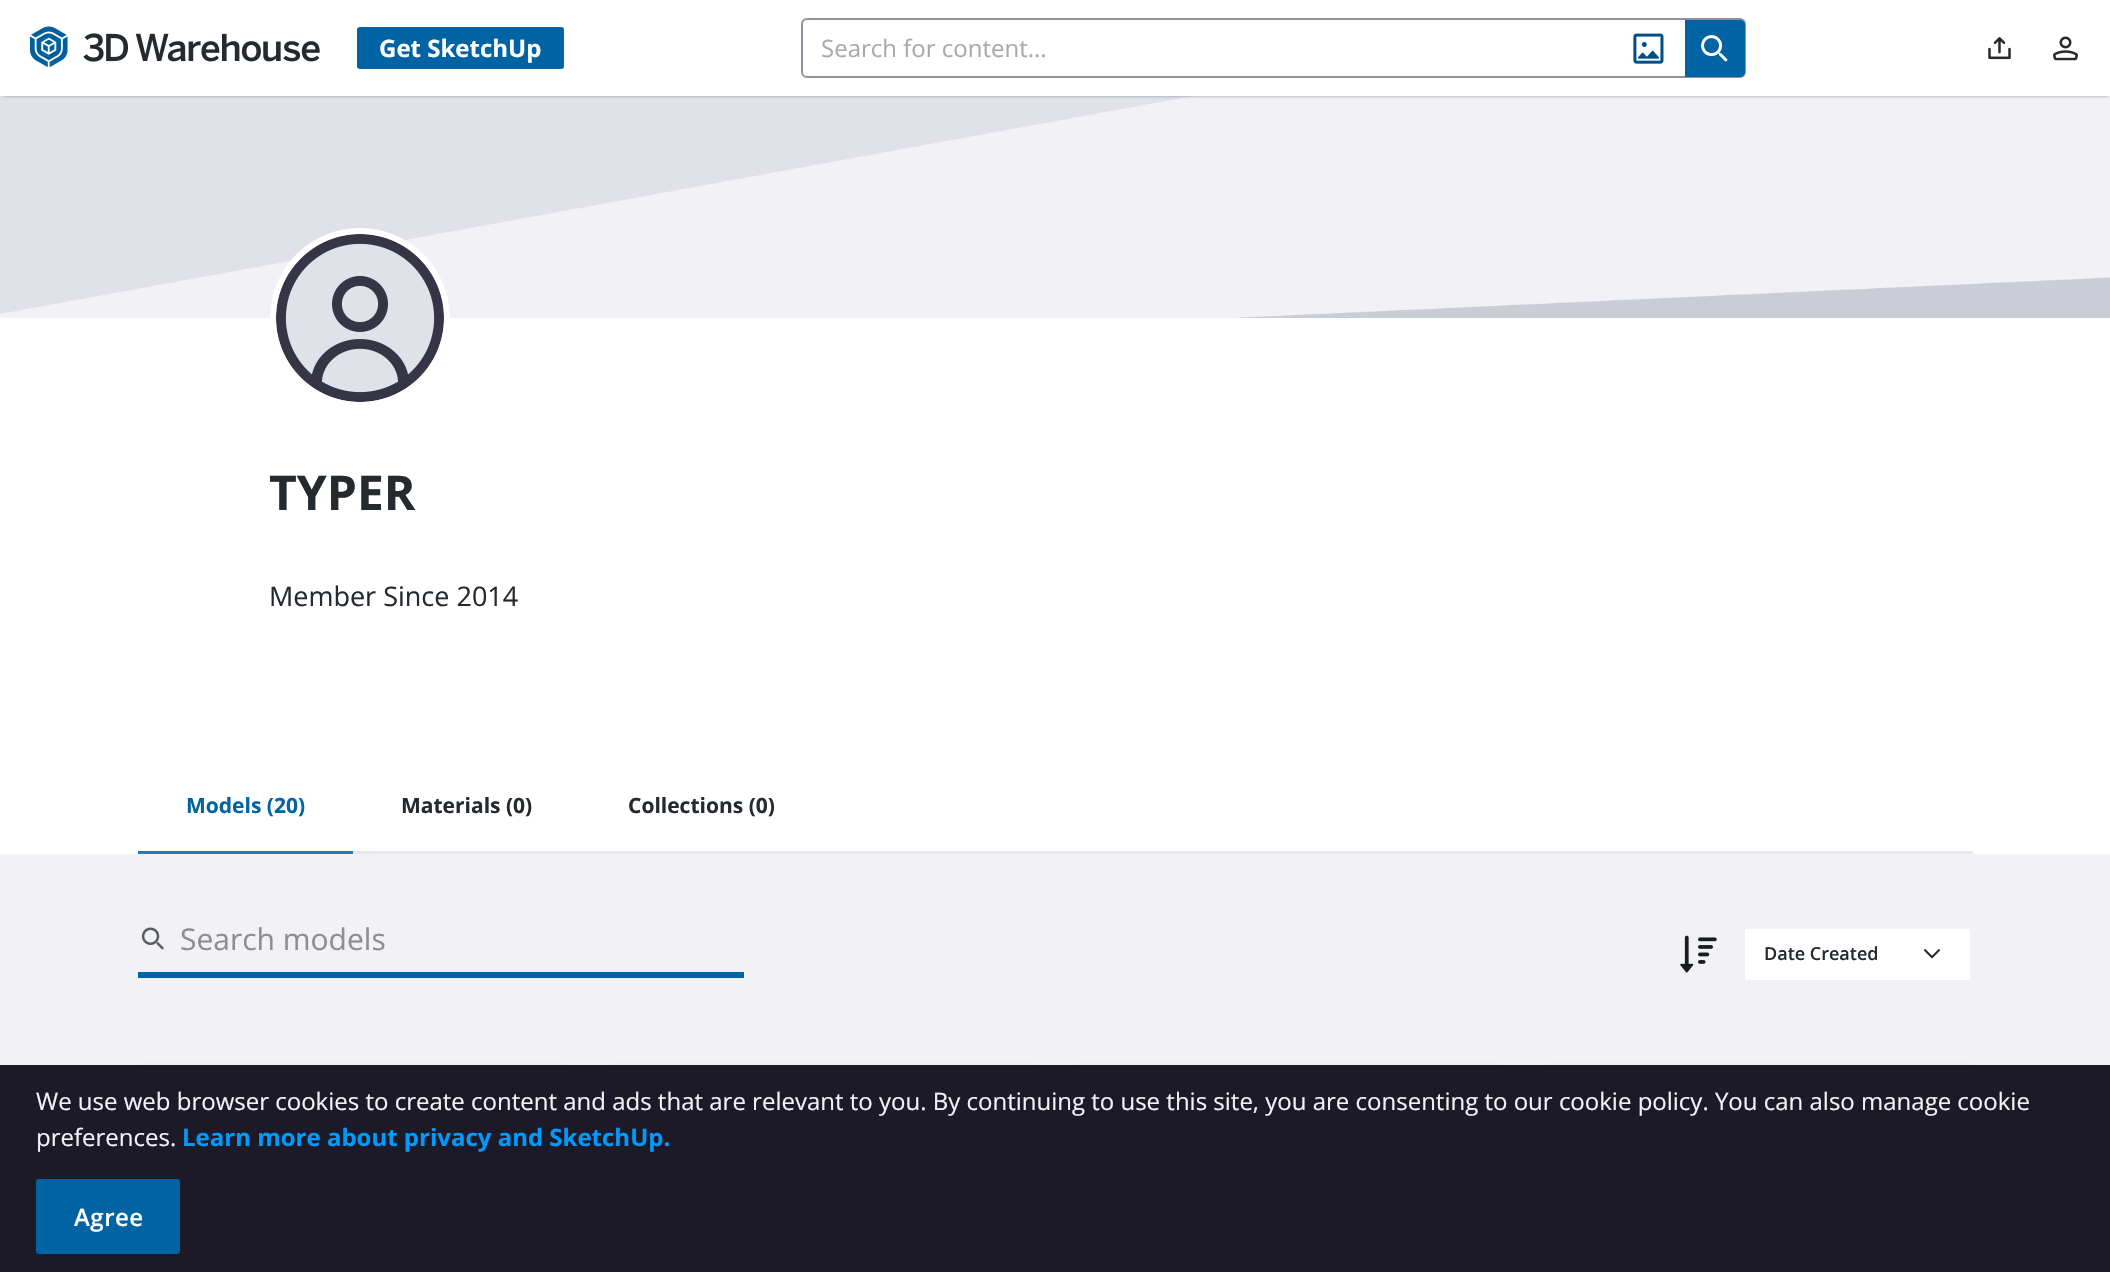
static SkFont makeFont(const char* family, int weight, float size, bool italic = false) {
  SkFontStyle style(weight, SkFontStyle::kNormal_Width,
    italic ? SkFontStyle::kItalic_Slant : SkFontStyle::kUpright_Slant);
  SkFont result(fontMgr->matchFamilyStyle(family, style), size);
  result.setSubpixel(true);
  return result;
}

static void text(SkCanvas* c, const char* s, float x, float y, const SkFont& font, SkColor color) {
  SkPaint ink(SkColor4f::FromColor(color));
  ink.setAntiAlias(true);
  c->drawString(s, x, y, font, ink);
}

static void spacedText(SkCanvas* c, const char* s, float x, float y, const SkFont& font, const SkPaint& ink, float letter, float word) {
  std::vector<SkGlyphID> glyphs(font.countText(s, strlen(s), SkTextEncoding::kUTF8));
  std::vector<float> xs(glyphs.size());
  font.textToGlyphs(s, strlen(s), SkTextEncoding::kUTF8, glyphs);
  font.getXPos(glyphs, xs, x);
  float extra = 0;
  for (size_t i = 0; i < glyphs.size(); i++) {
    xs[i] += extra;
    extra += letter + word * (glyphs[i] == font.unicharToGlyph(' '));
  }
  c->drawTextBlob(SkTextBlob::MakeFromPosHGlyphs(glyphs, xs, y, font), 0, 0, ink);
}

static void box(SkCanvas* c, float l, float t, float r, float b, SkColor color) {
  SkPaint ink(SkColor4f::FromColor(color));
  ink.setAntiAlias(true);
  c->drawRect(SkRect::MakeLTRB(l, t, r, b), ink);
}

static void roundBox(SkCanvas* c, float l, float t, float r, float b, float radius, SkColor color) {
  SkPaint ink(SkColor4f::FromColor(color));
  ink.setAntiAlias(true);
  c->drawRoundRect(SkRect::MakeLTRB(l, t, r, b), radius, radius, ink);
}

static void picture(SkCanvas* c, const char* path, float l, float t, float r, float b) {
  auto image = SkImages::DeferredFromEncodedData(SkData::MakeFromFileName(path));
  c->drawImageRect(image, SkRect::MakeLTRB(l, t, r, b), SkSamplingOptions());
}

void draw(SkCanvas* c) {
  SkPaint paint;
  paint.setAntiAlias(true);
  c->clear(0xffffffff);
  picture(c, "img_07.png", 0, 96, 2110, 318);
  paint.setColor(0xff90939f);
  paint.setMaskFilter(SkMaskFilter::MakeBlur(kNormal_SkBlurStyle, 1.5f));
  c->drawRect(SkRect::MakeLTRB(3, 6, 2108, 96), paint);
  paint.setMaskFilter(nullptr);
  box(c, 0, 3, 2110, 96, 0xffffffff);
  picture(c, "img_01.png", 30, 26, 68, 68);
  picture(c, "img_02.png", 83, 33, 320, 62);
  roundBox(c, 357, 27, 564, 69, 3, 0xff0063a3);
  SkFont face1 = makeFont("Open Sans", 700, 24);
  text(c, "Get SketchUp", 379, 57, face1, 0xffffffff);
  paint.setStyle(SkPaint::kStroke_Style);
  paint.setStrokeWidth(2);
  c->drawRoundRect(SkRect::MakeLTRB(802, 19, 1745, 77), 5, 5, paint);
  SkFont face2 = makeFont("Open Sans", 400, 24);
  text(c, "Search for content...", 821, 57, face2, 0xffa8aaab);
  picture(c, "img_03.png", 1633, 33, 1664, 64);
  paint.setStyle(SkPaint::kFill_Style);
  paint.setColor(0xff0063a3);
  c->drawPath(SkPathBuilder().moveTo(1685, 20).lineTo(1740, 20).cubicTo(1743, 20, 1745, 22, 1745, 25).lineTo(1745, 72).cubicTo(1745, 75, 1743, 77, 1740, 77).lineTo(1685, 77).close().detach(), paint);
  picture(c, "img_04.png", 1701, 35, 1728, 62);
  picture(c, "img_05.png", 1988, 37, 2011, 60);
  picture(c, "img_06.png", 2053, 36, 2078, 61);
  paint.setColor(0xffe0e1e9);
  c->drawCircle(360, 318, 87, paint);
  paint.setStyle(SkPaint::kStroke_Style);
  paint.setStrokeWidth(6);
  paint.setColor(0xffffffff);
  c->drawCircle(360, 318, 87, paint);
  picture(c, "img_08.png", 276, 234, 444, 402);
  SkFont face3 = makeFont("Open Sans", 700, 48);
  text(c, "TYPER", 269, 510, face3, 0xff252a2e);
  SkFont face4 = makeFont("Open Sans", 400, 27);
  text(c, "Member Since 2014", 269, 606, face4, 0xff252a2e);
  box(c, 824, 851, 1973, 854, 0xffe5e7eb);
  box(c, 138, 851, 353, 854, 0xff217cbb);
  SkFont face5 = makeFont("Open Sans", 700, 21);
  text(c, "Models (20)", 186, 813, face5, 0xff0063a3);
  box(c, 353, 851, 824, 854, 0xffe5e7eb);
  text(c, "Materials (0)", 401, 813, face5, 0xff252a2e);
  text(c, "Collections (0)", 628, 813, face5, 0xff252a2e);
  box(c, 0, 854, 2110, 1065, 0xfff1f1f6);
  box(c, 138, 972, 744, 978, 0xff0063a3);
  picture(c, "img_09.png", 141, 927, 164, 950);
  SkFont face6 = makeFont("Open Sans", 400, 30);
  text(c, "Search models", 180, 950, face6, 0xff8b8e92);
  picture(c, "img_10.png", 1680, 935, 1717, 973);
  box(c, 1745, 929, 1970, 980, 0xffffffff);
  SkFont face7 = makeFont("Open Sans", 600, 18);
  text(c, "Date Created", 1764, 960, face7, 0xff252a2e);
  picture(c, "img_11.png", 1924, 949, 1940, 959);
  paint.setStyle(SkPaint::kFill_Style);
  paint.setColor(0x33191919);
  paint.setMaskFilter(SkMaskFilter::MakeBlur(kNormal_SkBlurStyle, 3));
  c->drawRoundRect(SkRect::MakeLTRB(138, 1068, 570, 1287), 6, 6, paint);
  paint.setMaskFilter(nullptr);
  paint.setMaskFilter(SkMaskFilter::MakeBlur(kNormal_SkBlurStyle, 3));
  c->drawRoundRect(SkRect::MakeLTRB(606, 1068, 1038, 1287), 6, 6, paint);
  paint.setMaskFilter(nullptr);
  paint.setMaskFilter(SkMaskFilter::MakeBlur(kNormal_SkBlurStyle, 3));
  c->drawRoundRect(SkRect::MakeLTRB(1074, 1068, 1505, 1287), 6, 6, paint);
  paint.setMaskFilter(nullptr);
  paint.setMaskFilter(SkMaskFilter::MakeBlur(kNormal_SkBlurStyle, 3));
  c->drawRoundRect(SkRect::MakeLTRB(1541, 1068, 1973, 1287), 6, 6, paint);
  paint.setMaskFilter(nullptr);
  box(c, 0, 1065, 2110, 1272, 0xff1b1a26);
  text(c, "We use web browser cookies to create content and ads that are relevant to you. By continuing to use this site, you are consenting to our cookie policy. You can also manage cookie", 36, 1110, face2, 0xfff1f1f6);
  text(c, "preferences.", 36, 1146, face2, 0xfff1f1f6);
  text(c, "Learn more about privacy and SketchUp.", 182, 1146, face1, 0xff0099fe);
  paint.setColor(0xff0063a3);
  c->drawRoundRect(SkRect::MakeLTRB(37, 1180, 179, 1253), 2, 2, paint);
  paint.setStyle(SkPaint::kStroke_Style);
  paint.setStrokeWidth(2);
  c->drawRoundRect(SkRect::MakeLTRB(37, 1180, 179, 1253), 2, 2, paint);
  SkFont face8 = makeFont("Open Sans", 600, 24);
  paint.setStyle(SkPaint::kFill_Style);
  paint.setColor(0xffffffff);
  spacedText(c, "Agree", 74, 1226, face8, paint, 0.5f, 0);
}
